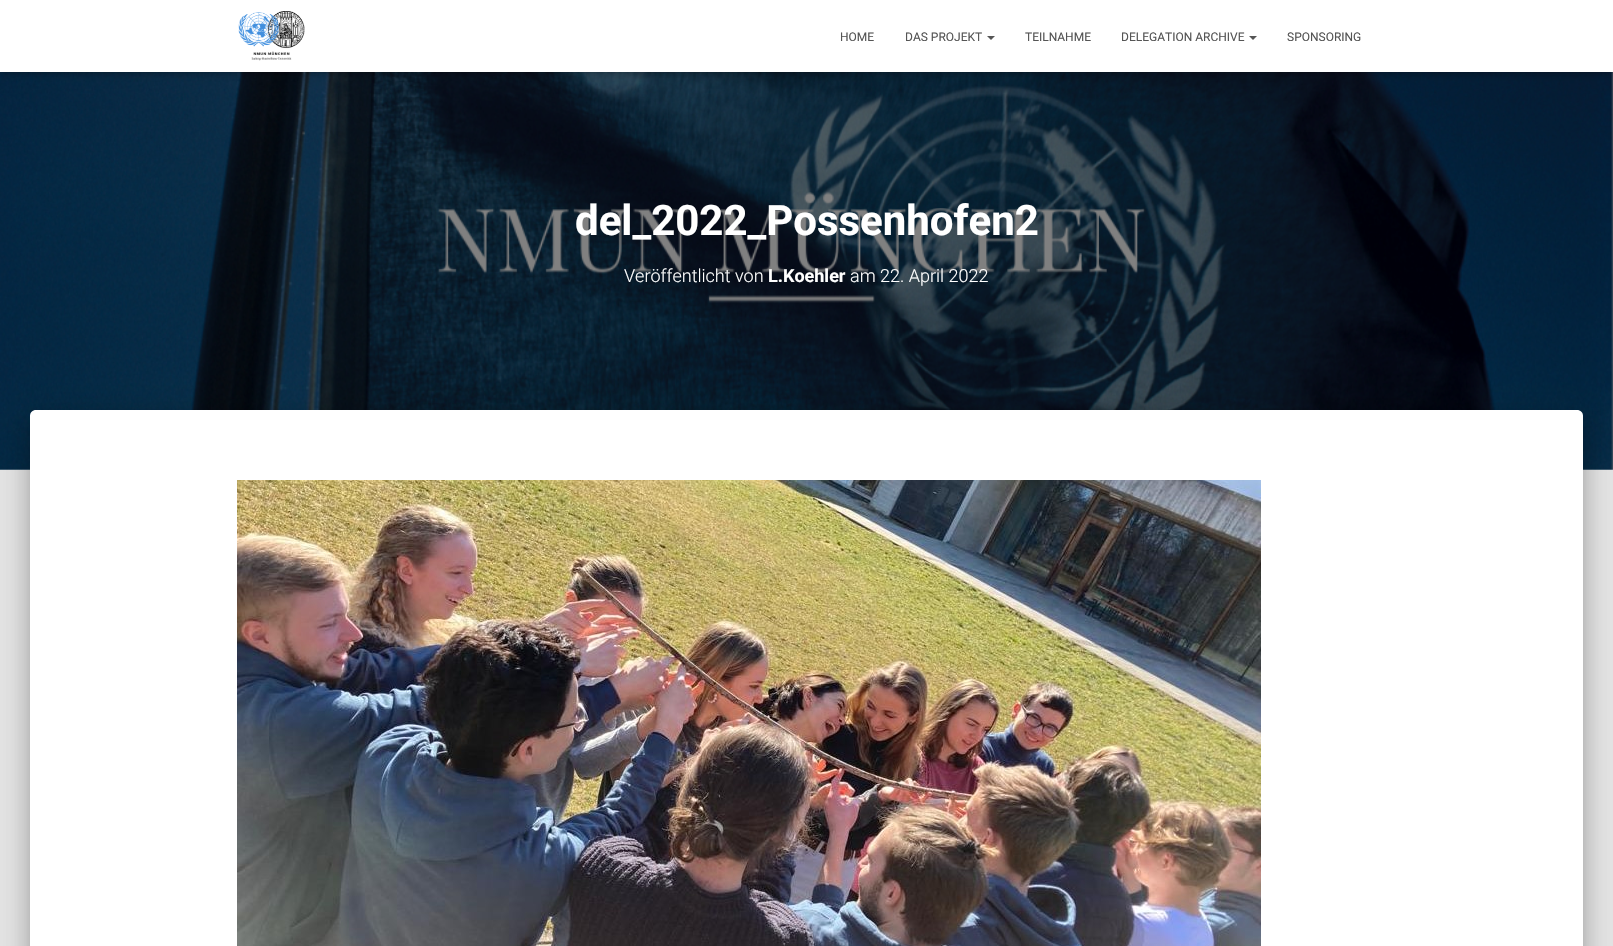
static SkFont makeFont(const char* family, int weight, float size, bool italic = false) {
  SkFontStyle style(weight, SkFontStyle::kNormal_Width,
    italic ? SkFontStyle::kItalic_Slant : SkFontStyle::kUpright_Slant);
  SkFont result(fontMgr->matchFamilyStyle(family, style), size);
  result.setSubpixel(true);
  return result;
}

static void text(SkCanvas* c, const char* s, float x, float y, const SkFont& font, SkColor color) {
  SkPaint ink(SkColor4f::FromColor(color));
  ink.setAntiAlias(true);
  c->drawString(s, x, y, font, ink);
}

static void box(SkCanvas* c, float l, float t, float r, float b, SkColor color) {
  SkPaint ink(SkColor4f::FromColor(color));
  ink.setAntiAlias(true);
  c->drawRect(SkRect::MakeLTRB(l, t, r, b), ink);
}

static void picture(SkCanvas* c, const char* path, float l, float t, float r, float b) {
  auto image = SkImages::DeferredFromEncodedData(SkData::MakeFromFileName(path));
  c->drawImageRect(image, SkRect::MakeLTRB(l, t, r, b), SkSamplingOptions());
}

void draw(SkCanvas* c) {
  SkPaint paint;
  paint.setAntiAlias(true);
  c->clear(0xffe5e5e5);
  picture(c, "img_02.png", 0, 72, 1613, 470);
  paint.setColor(0x1a000000);
  paint.setMaskFilter(SkMaskFilter::MakeBlur(kNormal_SkBlurStyle, 2.5f));
  c->drawRect(SkRect::MakeLTRB(2, 6, 1611, 74), paint);
  paint.setMaskFilter(nullptr);
  paint.setColor(0x1f000000);
  paint.setMaskFilter(SkMaskFilter::MakeBlur(kNormal_SkBlurStyle, 5));
  c->drawRect(SkRect::MakeLTRB(0, 1, 1613, 73), paint);
  paint.setMaskFilter(nullptr);
  paint.setColor(0x6b000000);
  paint.setMaskFilter(SkMaskFilter::MakeBlur(kNormal_SkBlurStyle, 5));
  c->drawRect(SkRect::MakeLTRB(6, 7, 1607, 67), paint);
  paint.setMaskFilter(nullptr);
  box(c, 0, 0, 1613, 72, 0xffffffff);
  picture(c, "img_01.png", 238, 11, 305, 61);
  SkFont face1 = makeFont("Roboto", 400, 12);
  text(c, "HOME", 840, 41, face1, 0xff555555);
  text(c, "DAS PROJEKT", 905, 41, face1, 0xff555555);
  paint.setColor(0xff555555);
  c->drawPath(SkPathBuilder().moveTo(987, 36).lineTo(995, 36).lineTo(991, 40).close().detach(), paint);
  text(c, "TEILNAHME", 1025, 41, face1, 0xff555555);
  text(c, "DELEGATION ARCHIVE", 1121, 41, face1, 0xff555555);
  c->drawPath(SkPathBuilder().moveTo(1249, 36).lineTo(1257, 36).lineTo(1253, 40).close().detach(), paint);
  text(c, "SPONSORING", 1287, 41, face1, 0xff555555);
  SkFont face2 = makeFont("Roboto", 700, 42);
  text(c, "del_2022_Possenhofen2", 575, 235, face2, 0xffffffff);
  SkFont face3 = makeFont("Roboto", 300, 18);
  text(c, "Veröffentlicht von", 624, 282, face3, 0xffffffff);
  SkFont face4 = makeFont("Roboto", 700, 18);
  text(c, "L.Koehler", 768, 282, face4, 0xffffffff);
  text(c, "am 22. April 2022", 850, 282, face3, 0xffffffff);
  paint.setColor(0x33000000);
  paint.setMaskFilter(SkMaskFilter::MakeBlur(kNormal_SkBlurStyle, 5));
  c->drawRoundRect(SkRect::MakeLTRB(35, 423, 1578, 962), 1, 1, paint);
  paint.setMaskFilter(nullptr);
  paint.setColor(0x1f000000);
  paint.setMaskFilter(SkMaskFilter::MakeBlur(kNormal_SkBlurStyle, 15));
  c->drawRoundRect(SkRect::MakeLTRB(25, 411, 1588, 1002), 11, 11, paint);
  paint.setMaskFilter(nullptr);
  paint.setColor(0x24000000);
  paint.setMaskFilter(SkMaskFilter::MakeBlur(kNormal_SkBlurStyle, 12));
  c->drawRoundRect(SkRect::MakeLTRB(28, 424, 1585, 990), 8, 8, paint);
  paint.setMaskFilter(nullptr);
  paint.setColor(0xffffffff);
  c->drawPath(SkPathBuilder().moveTo(36, 410).lineTo(1577, 410).cubicTo(1580.5f, 410, 1583, 412.5f, 1583, 416).lineTo(1583, 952).lineTo(30, 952).lineTo(30, 416).cubicTo(30, 412.5f, 32.5f, 410, 36, 410).close().detach(), paint);
  picture(c, "img_03.png", 237, 480, 1261, 946);
}
